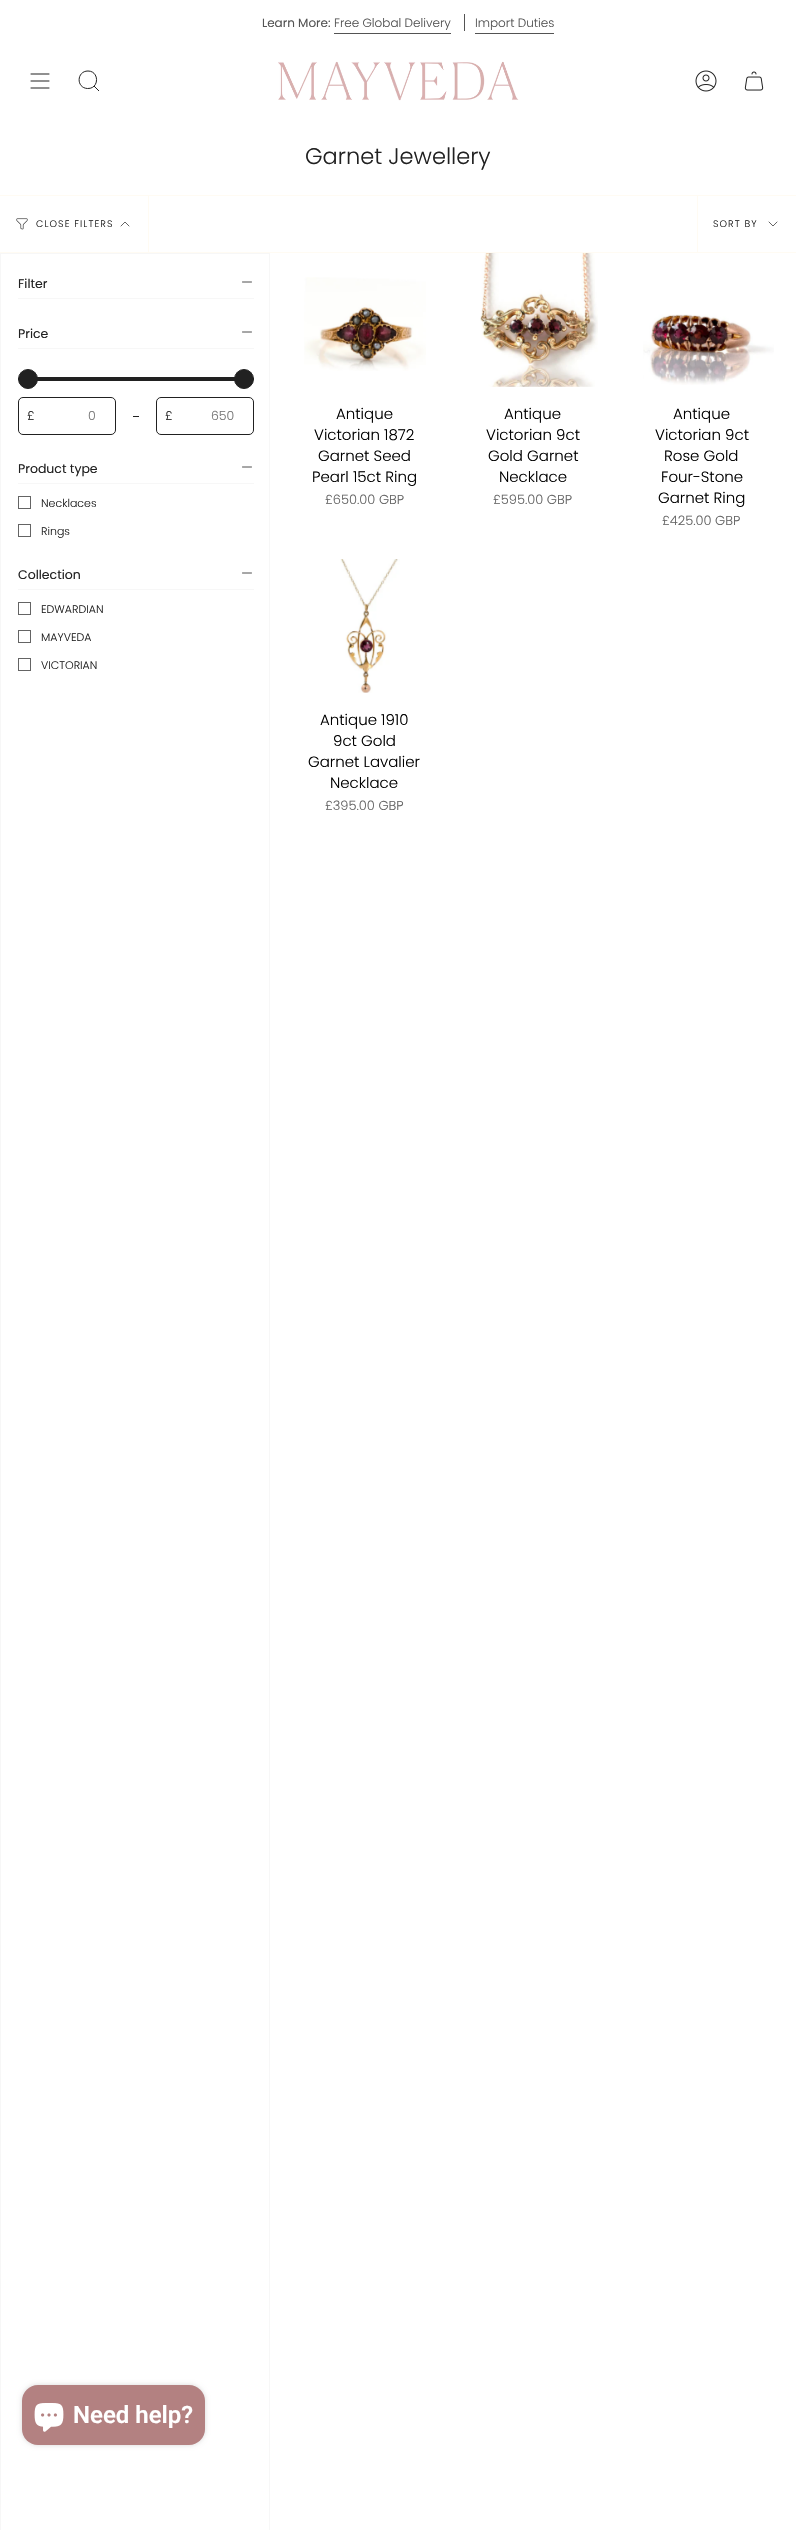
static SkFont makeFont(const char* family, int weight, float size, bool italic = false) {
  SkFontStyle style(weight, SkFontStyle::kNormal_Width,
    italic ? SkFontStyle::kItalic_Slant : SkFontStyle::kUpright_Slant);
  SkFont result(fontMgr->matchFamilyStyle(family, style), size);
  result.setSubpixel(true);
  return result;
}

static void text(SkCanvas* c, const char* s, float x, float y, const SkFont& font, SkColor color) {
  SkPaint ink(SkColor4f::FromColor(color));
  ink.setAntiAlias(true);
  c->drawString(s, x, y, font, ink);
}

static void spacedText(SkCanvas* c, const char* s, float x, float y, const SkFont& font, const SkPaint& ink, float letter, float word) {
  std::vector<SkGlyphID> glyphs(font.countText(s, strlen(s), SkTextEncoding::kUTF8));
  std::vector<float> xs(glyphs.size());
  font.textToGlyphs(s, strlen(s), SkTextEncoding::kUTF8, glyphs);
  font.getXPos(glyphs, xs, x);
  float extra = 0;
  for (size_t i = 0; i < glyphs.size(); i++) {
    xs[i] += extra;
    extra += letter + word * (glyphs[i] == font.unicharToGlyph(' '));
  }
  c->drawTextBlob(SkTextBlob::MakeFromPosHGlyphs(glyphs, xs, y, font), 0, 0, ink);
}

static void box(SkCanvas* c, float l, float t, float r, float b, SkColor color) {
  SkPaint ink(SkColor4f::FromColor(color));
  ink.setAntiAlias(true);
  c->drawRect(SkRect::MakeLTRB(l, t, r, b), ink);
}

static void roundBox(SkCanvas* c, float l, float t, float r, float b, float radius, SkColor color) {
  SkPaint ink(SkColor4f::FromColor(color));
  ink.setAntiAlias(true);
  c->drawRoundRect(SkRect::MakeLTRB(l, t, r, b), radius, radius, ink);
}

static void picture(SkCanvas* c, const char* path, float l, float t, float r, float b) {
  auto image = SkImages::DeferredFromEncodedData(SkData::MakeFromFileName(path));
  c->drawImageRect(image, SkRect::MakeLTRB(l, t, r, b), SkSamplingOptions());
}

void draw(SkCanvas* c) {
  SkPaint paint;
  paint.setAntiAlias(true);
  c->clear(0xffffffff);
  SkFont face1 = makeFont("Poppins", 400, 12);
  text(c, "Learn More:", 262, 27, face1, 0xff545454);
  SkFont face2 = makeFont("Poppins", 300, 12);
  text(c, "Free Global Delivery", 334, 27, face2, 0xff545454);
  box(c, 334, 33, 451, 34, 0xff545454);
  box(c, 464, 14, 465, 31, 0xff545454);
  text(c, "Import Duties", 475, 27, face2, 0xff545454);
  box(c, 475, 33, 554, 34, 0xff545454);
  paint.setStyle(SkPaint::kStroke_Style);
  paint.setStrokeWidth(1);
  paint.setStrokeCap(SkPaint::kRound_Cap);
  paint.setStrokeJoin(SkPaint::kRound_Join);
  paint.setColor(0xff212121);
  c->drawPath(SkPathBuilder().moveTo(31, 74).lineTo(49, 74).moveTo(31, 81).lineTo(49, 81).moveTo(31, 88).lineTo(49, 88).detach(), paint);
  paint.setStrokeCap(SkPaint::kButt_Cap);
  paint.setStrokeJoin(SkPaint::kMiter_Join);
  c->drawPath(SkPathBuilder().moveTo(88, 71).cubicTo(99.5f, 71, 99.5f, 89, 87.5f, 88.5f).cubicTo(76, 88, 76.5f, 71, 88, 71).close().moveTo(94, 86).lineTo(99, 91).detach(), paint);
  picture(c, "img_01.png", 278, 61, 519, 101);
  picture(c, "img_02.png", 695, 70, 717, 92);
  picture(c, "img_03.png", 744, 71, 764, 91);
  SkFont face3 = makeFont("Poppins", 300, 22.5f);
  text(c, "Garnet Jewellery", 305, 164, face3, 0xff212121);
  box(c, 0, 195, 796, 196, 0xfffffbf3);
  box(c, 0, 252, 796, 253, 0xfffffbf3);
  box(c, 148, 196, 149, 252, 0xfffffbf3);
  picture(c, "img_04.png", 16, 218, 28, 230);
  SkFont face4 = makeFont("Poppins", 300, 9.5f);
  paint.setStyle(SkPaint::kFill_Style);
  spacedText(c, "CLOSE FILTERS", 36, 227, face4, paint, 1.1f, 0);
  paint.setStyle(SkPaint::kStroke_Style);
  paint.setStrokeWidth(0.7f);
  paint.setStrokeCap(SkPaint::kRound_Cap);
  paint.setStrokeJoin(SkPaint::kRound_Join);
  c->drawPath(SkPathBuilder().moveTo(121, 226).lineTo(125, 222).lineTo(129, 226).detach(), paint);
  box(c, 697, 196, 698, 252, 0xfffffbf3);
  paint.setStyle(SkPaint::kFill_Style);
  spacedText(c, "SORT BY", 713, 227, face4, paint, 1.1f, 0);
  paint.setStyle(SkPaint::kStroke_Style);
  c->drawPath(SkPathBuilder().moveTo(769, 222).lineTo(773, 226).lineTo(777, 222).detach(), paint);
  paint.setStrokeWidth(1);
  paint.setStrokeCap(SkPaint::kButt_Cap);
  paint.setStrokeJoin(SkPaint::kMiter_Join);
  paint.setColor(0xfff7f7f7);
  c->drawRect(SkRect::MakeLTRB(0.5f, 253.5f, 269.5f, 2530.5f), paint);
  box(c, 18, 298, 254, 299, 0xfff7f7f7);
  SkFont face5 = makeFont("Poppins", 400, 12.5f);
  text(c, "Filter", 18, 288, face5, 0xff212121);
  paint.setStrokeWidth(0.8f);
  paint.setStrokeCap(SkPaint::kRound_Cap);
  paint.setStrokeJoin(SkPaint::kRound_Join);
  paint.setColor(0xff212121);
  c->drawPath(SkPathBuilder().moveTo(242.5f, 282).lineTo(251.5f, 282).detach(), paint);
  box(c, 18, 348, 254, 349, 0xfff7f7f7);
  text(c, "Price", 18, 338, face5, 0xff212121);
  c->drawPath(SkPathBuilder().moveTo(242.5f, 332).lineTo(251.5f, 332).detach(), paint);
  paint.setStrokeWidth(1);
  paint.setStrokeCap(SkPaint::kButt_Cap);
  paint.setStrokeJoin(SkPaint::kMiter_Join);
  c->drawRoundRect(SkRect::MakeLTRB(18.5f, 377.5f, 253.5f, 380.5f), 1.5f, 1.5f, paint);
  box(c, 37, 378, 235, 380, 0xff212121);
  paint.setStyle(SkPaint::kFill_Style);
  c->drawCircle(28, 379, 9.5f, paint);
  paint.setStyle(SkPaint::kStroke_Style);
  c->drawCircle(28, 379, 9.5f, paint);
  paint.setStyle(SkPaint::kFill_Style);
  c->drawCircle(244, 379, 9.5f, paint);
  paint.setStyle(SkPaint::kStroke_Style);
  c->drawCircle(244, 379, 9.5f, paint);
  c->drawRoundRect(SkRect::MakeLTRB(18.5f, 397.5f, 115.5f, 434.5f), 4.5f, 4.5f, paint);
  SkFont face6 = makeFont("Poppins", 300, 12.5f);
  text(c, "£", 27, 420, face6, 0xff212121);
  text(c, "0", 88, 420, face6, 0xff757575);
  box(c, 133, 416, 139, 417, 0xff212121);
  c->drawRoundRect(SkRect::MakeLTRB(156.5f, 397.5f, 253.5f, 434.5f), 4.5f, 4.5f, paint);
  text(c, "£", 165, 420, face6, 0xff212121);
  text(c, "650", 211, 420, face6, 0xff757575);
  box(c, 18, 483, 254, 484, 0xfff7f7f7);
  text(c, "Product type", 18, 473, face5, 0xff212121);
  paint.setStrokeWidth(0.8f);
  paint.setStrokeCap(SkPaint::kRound_Cap);
  paint.setStrokeJoin(SkPaint::kRound_Join);
  c->drawPath(SkPathBuilder().moveTo(242.5f, 467).lineTo(251.5f, 467).detach(), paint);
  paint.setStrokeWidth(1);
  paint.setStrokeCap(SkPaint::kButt_Cap);
  paint.setStrokeJoin(SkPaint::kMiter_Join);
  paint.setColor(0xff646464);
  c->drawRect(SkRect::MakeLTRB(18.5f, 496.5f, 30.5f, 508.5f), paint);
  SkFont face7 = makeFont("Poppins", 300, 11);
  text(c, "Necklaces", 41, 507, face7, 0xff212121);
  c->drawRect(SkRect::MakeLTRB(18.5f, 524.5f, 30.5f, 536.5f), paint);
  text(c, "Rings", 41, 535, face7, 0xff212121);
  box(c, 18, 589, 254, 590, 0xfff7f7f7);
  text(c, "Collection", 18, 579, face5, 0xff212121);
  paint.setStrokeWidth(0.8f);
  paint.setStrokeCap(SkPaint::kRound_Cap);
  paint.setStrokeJoin(SkPaint::kRound_Join);
  paint.setColor(0xff212121);
  c->drawPath(SkPathBuilder().moveTo(242.5f, 573).lineTo(251.5f, 573).detach(), paint);
  paint.setStrokeWidth(1);
  paint.setStrokeCap(SkPaint::kButt_Cap);
  paint.setStrokeJoin(SkPaint::kMiter_Join);
  paint.setColor(0xff646464);
  c->drawRect(SkRect::MakeLTRB(18.5f, 602.5f, 30.5f, 614.5f), paint);
  text(c, "EDWARDIAN", 41, 613, face7, 0xff212121);
  c->drawRect(SkRect::MakeLTRB(18.5f, 630.5f, 30.5f, 642.5f), paint);
  text(c, "MAYVEDA", 41, 641, face7, 0xff212121);
  c->drawRect(SkRect::MakeLTRB(18.5f, 658.5f, 30.5f, 670.5f), paint);
  text(c, "VICTORIAN", 41, 669, face7, 0xff212121);
  picture(c, "img_05.png", 304, 277, 426, 371);
  SkFont face8 = makeFont("Poppins", 300, 15);
  text(c, "Antique", 336, 419, face8, 0xff000000);
  text(c, "Victorian 1872", 314, 440, face8, 0xff000000);
  text(c, "Garnet Seed", 318, 461, face8, 0xff000000);
  text(c, "Pearl 15ct Ring", 312, 482, face8, 0xff000000);
  SkFont face9 = makeFont("Poppins", 300, 13);
  text(c, "£650.00 GBP", 325, 504, face9, 0xff646464);
  picture(c, "img_06.png", 480, 253, 598, 387);
  text(c, "Antique", 504, 419, face8, 0xff000000);
  text(c, "Victorian 9ct", 486, 440, face8, 0xff000000);
  text(c, "Gold Garnet", 488, 461, face8, 0xff000000);
  text(c, "Necklace", 499, 482, face8, 0xff000000);
  text(c, "£595.00 GBP", 493, 504, face9, 0xff646464);
  picture(c, "img_07.png", 643, 314, 774, 385);
  text(c, "Antique", 673, 419, face8, 0xff000000);
  text(c, "Victorian 9ct", 655, 440, face8, 0xff000000);
  text(c, "Rose Gold", 664, 461, face8, 0xff000000);
  text(c, "Four-Stone", 661, 482, face8, 0xff000000);
  text(c, "Garnet Ring", 658, 503, face8, 0xff000000);
  text(c, "£425.00 GBP", 662, 525, face9, 0xff646464);
  picture(c, "img_08.png", 340, 559, 400, 693);
  text(c, "Antique 1910", 320, 725, face8, 0xff000000);
  text(c, "9ct Gold", 333, 746, face8, 0xff000000);
  text(c, "Garnet Lavalier", 308, 767, face8, 0xff000000);
  text(c, "Necklace", 330, 788, face8, 0xff000000);
  text(c, "£395.00 GBP", 325, 810, face9, 0xff646464);
  paint.setStyle(SkPaint::kFill_Style);
  paint.setColor(0x26000000);
  paint.setMaskFilter(SkMaskFilter::MakeBlur(kNormal_SkBlurStyle, 2.5f));
  c->drawRoundRect(SkRect::MakeLTRB(22, 2385, 205, 2445), 16, 16, paint);
  paint.setMaskFilter(nullptr);
  roundBox(c, 22, 2385, 205, 2445, 16, 0xffb38181);
  picture(c, "img_09.png", 34, 2403, 64, 2432);
  SkFont face10 = makeFont("Roboto", 600, 24);
  text(c, "Need help?", 73, 2423, face10, 0xffffffff);
}
